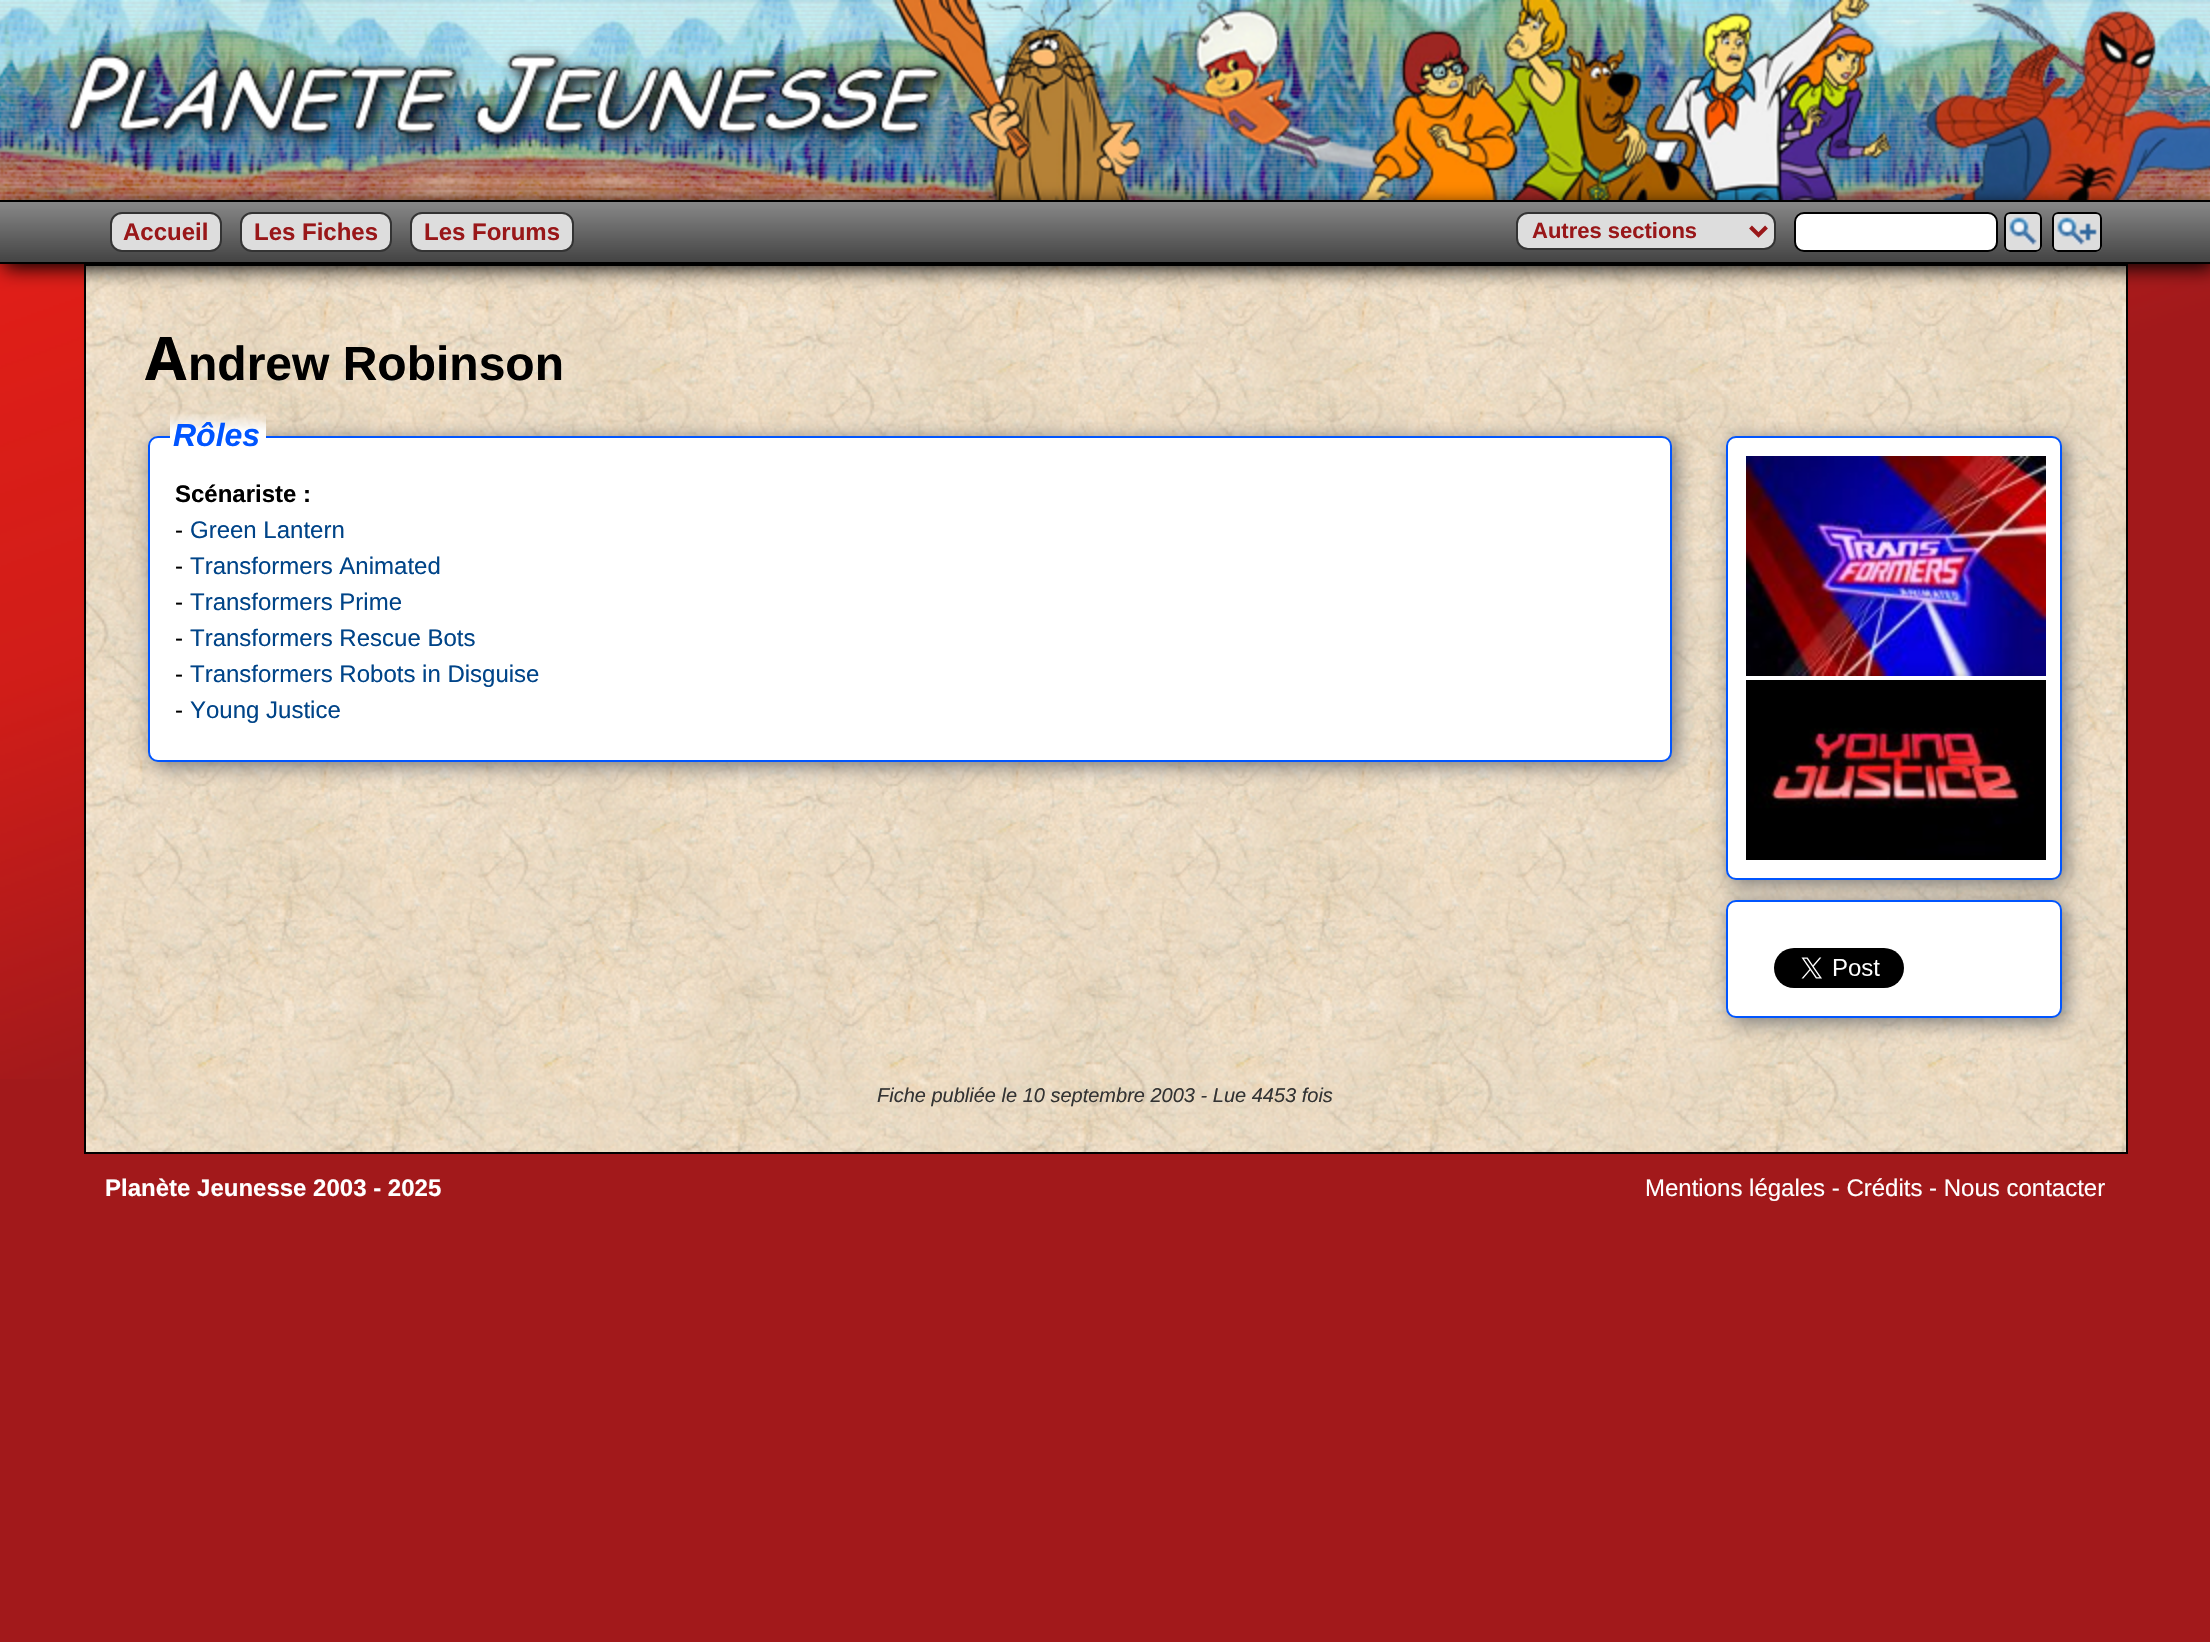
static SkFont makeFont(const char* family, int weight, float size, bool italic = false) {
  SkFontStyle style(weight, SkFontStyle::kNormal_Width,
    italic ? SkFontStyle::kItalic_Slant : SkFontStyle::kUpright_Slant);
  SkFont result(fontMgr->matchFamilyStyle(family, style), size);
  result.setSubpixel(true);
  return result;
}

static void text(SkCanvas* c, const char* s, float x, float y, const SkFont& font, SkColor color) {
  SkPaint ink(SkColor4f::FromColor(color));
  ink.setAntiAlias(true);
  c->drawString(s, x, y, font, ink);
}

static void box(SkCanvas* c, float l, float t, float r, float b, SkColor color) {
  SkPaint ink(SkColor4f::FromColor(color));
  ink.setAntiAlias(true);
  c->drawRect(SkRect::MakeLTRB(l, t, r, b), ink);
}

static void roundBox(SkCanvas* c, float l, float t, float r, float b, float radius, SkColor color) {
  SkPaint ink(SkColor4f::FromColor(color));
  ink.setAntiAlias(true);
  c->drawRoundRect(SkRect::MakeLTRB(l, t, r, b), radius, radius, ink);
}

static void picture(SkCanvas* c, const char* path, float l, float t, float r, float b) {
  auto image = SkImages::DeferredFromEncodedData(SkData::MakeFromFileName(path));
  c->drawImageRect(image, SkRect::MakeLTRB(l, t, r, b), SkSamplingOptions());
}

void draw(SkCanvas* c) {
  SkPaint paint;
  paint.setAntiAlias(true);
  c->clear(0xffa2191b);
  picture(c, "img_01.png", 0, 264, 2210, 1079);
  picture(c, "img_02.png", 0, 0, 2210, 200);
  box(c, 0, 200, 2210, 202, 0xff000000);
  picture(c, "img_03.png", 61, 46, 954, 151);
  picture(c, "img_07.png", 86, 266, 2126, 1152);
  paint.setStyle(SkPaint::kStroke_Style);
  paint.setStrokeWidth(2);
  paint.setColor(0xff000000);
  c->drawRect(SkRect::MakeLTRB(85, 265, 2127, 1153), paint);
  paint.setStyle(SkPaint::kFill_Style);
  paint.setMaskFilter(SkMaskFilter::MakeBlur(kNormal_SkBlurStyle, 10));
  c->drawRect(SkRect::MakeLTRB(4, 206, 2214, 268), paint);
  paint.setMaskFilter(nullptr);
  picture(c, "img_04.png", 0, 202, 2210, 262);
  box(c, 0, 262, 2210, 264, 0xff000000);
  paint.setColor(0xffdddddd);
  c->drawRoundRect(SkRect::MakeLTRB(111, 213, 221, 251), 11, 11, paint);
  paint.setStyle(SkPaint::kStroke_Style);
  paint.setColor(0xff333333);
  c->drawRoundRect(SkRect::MakeLTRB(111, 213, 221, 251), 11, 11, paint);
  SkFont face1 = makeFont("Liberation Sans", 700, 24);
  text(c, "Accueil", 123, 240, face1, 0xff991719);
  paint.setStyle(SkPaint::kFill_Style);
  paint.setColor(0xffdddddd);
  c->drawRoundRect(SkRect::MakeLTRB(241, 213, 391, 251), 11, 11, paint);
  paint.setStyle(SkPaint::kStroke_Style);
  paint.setColor(0xff333333);
  c->drawRoundRect(SkRect::MakeLTRB(241, 213, 391, 251), 11, 11, paint);
  text(c, "Les Fiches", 254, 240, face1, 0xff991719);
  paint.setStyle(SkPaint::kFill_Style);
  paint.setColor(0xffdddddd);
  c->drawRoundRect(SkRect::MakeLTRB(411, 213, 573, 251), 11, 11, paint);
  paint.setStyle(SkPaint::kStroke_Style);
  paint.setColor(0xff333333);
  c->drawRoundRect(SkRect::MakeLTRB(411, 213, 573, 251), 11, 11, paint);
  text(c, "Les Forums", 424, 240, face1, 0xff991719);
  paint.setStyle(SkPaint::kFill_Style);
  paint.setColor(0xffdddddd);
  c->drawRoundRect(SkRect::MakeLTRB(1517, 213, 1775, 249), 11, 11, paint);
  paint.setStyle(SkPaint::kStroke_Style);
  paint.setColor(0xff333333);
  c->drawRoundRect(SkRect::MakeLTRB(1517, 213, 1775, 249), 11, 11, paint);
  paint.setStrokeWidth(4);
  paint.setColor(0xff991719);
  c->drawPath(SkPathBuilder().moveTo(1750.5f, 227).lineTo(1758.5f, 235).lineTo(1766.5f, 227).detach(), paint);
  SkFont face2 = makeFont("Liberation Sans", 700, 22);
  text(c, "Autres sections", 1532, 238, face2, 0xff991719);
  paint.setStyle(SkPaint::kFill_Style);
  paint.setColor(0xffffffff);
  c->drawRoundRect(SkRect::MakeLTRB(1795, 213, 1997, 251), 9, 9, paint);
  paint.setStyle(SkPaint::kStroke_Style);
  paint.setStrokeWidth(2);
  paint.setColor(0xff000000);
  c->drawRoundRect(SkRect::MakeLTRB(1795, 213, 1997, 251), 9, 9, paint);
  roundBox(c, 2004, 212, 2042, 252, 6, 0xffdddddd);
  picture(c, "img_05.png", 2009, 217, 2037, 245);
  c->drawRoundRect(SkRect::MakeLTRB(2005, 213, 2041, 251), 5, 5, paint);
  roundBox(c, 2052, 212, 2102, 252, 6, 0xffdddddd);
  picture(c, "img_06.png", 2057, 217, 2097, 245);
  c->drawRoundRect(SkRect::MakeLTRB(2053, 213, 2101, 251), 5, 5, paint);
  SkFont face3 = makeFont("Noto Sans", 700, 60);
  text(c, "A", 145, 380, face3, 0xff000000);
  SkFont face4 = makeFont("Liberation Sans", 700, 48);
  text(c, "ndrew Robinson", 188, 380, face4, 0xff000000);
  paint.setStyle(SkPaint::kFill_Style);
  paint.setColor(0xff777777);
  paint.setMaskFilter(SkMaskFilter::MakeBlur(kNormal_SkBlurStyle, 10));
  c->drawRoundRect(SkRect::MakeLTRB(152, 440, 1676, 766), 10, 10, paint);
  paint.setMaskFilter(nullptr);
  paint.setColor(0xffffffff);
  c->drawRoundRect(SkRect::MakeLTRB(149, 437, 1671, 761), 9, 9, paint);
  paint.setStyle(SkPaint::kStroke_Style);
  paint.setColor(0xff0055ff);
  c->drawRoundRect(SkRect::MakeLTRB(149, 437, 1671, 761), 9, 9, paint);
  picture(c, "img_08.png", 170, 414, 266, 438);
  SkFont face5 = makeFont("Liberation Sans", 700, 32, true);
  text(c, "Rôles", 173, 446, face5, 0xff0055ff);
  text(c, "Scénariste :", 175, 502, face1, 0xff000000);
  SkFont face6 = makeFont("Liberation Sans", 400, 24);
  text(c, "-", 175, 538, face6, 0xff000000);
  text(c, "Green Lantern", 190, 538, face6, 0xff004488);
  text(c, "-", 175, 574, face6, 0xff000000);
  text(c, "Transformers Animated", 190, 574, face6, 0xff004488);
  text(c, "-", 175, 610, face6, 0xff000000);
  text(c, "Transformers Prime", 190, 610, face6, 0xff004488);
  text(c, "-", 175, 646, face6, 0xff000000);
  text(c, "Transformers Rescue Bots", 190, 646, face6, 0xff004488);
  text(c, "-", 175, 682, face6, 0xff000000);
  text(c, "Transformers Robots in Disguise", 190, 682, face6, 0xff004488);
  text(c, "-", 175, 718, face6, 0xff000000);
  text(c, "Young Justice", 190, 718, face6, 0xff004488);
  paint.setStyle(SkPaint::kFill_Style);
  paint.setColor(0xff777777);
  paint.setMaskFilter(SkMaskFilter::MakeBlur(kNormal_SkBlurStyle, 10));
  c->drawRoundRect(SkRect::MakeLTRB(1730, 440, 2066, 884), 10, 10, paint);
  paint.setMaskFilter(nullptr);
  paint.setColor(0xffffffff);
  c->drawRoundRect(SkRect::MakeLTRB(1727, 437, 2061, 879), 9, 9, paint);
  paint.setStyle(SkPaint::kStroke_Style);
  paint.setColor(0xff0055ff);
  c->drawRoundRect(SkRect::MakeLTRB(1727, 437, 2061, 879), 9, 9, paint);
  picture(c, "img_09.png", 1746, 456, 2046, 676);
  picture(c, "img_10.png", 1746, 680, 2046, 860);
  paint.setStyle(SkPaint::kFill_Style);
  paint.setColor(0xff777777);
  paint.setMaskFilter(SkMaskFilter::MakeBlur(kNormal_SkBlurStyle, 10));
  c->drawRoundRect(SkRect::MakeLTRB(1730, 904, 2066, 1022), 10, 10, paint);
  paint.setMaskFilter(nullptr);
  paint.setColor(0xffffffff);
  c->drawRoundRect(SkRect::MakeLTRB(1727, 901, 2061, 1017), 9, 9, paint);
  paint.setStyle(SkPaint::kStroke_Style);
  paint.setColor(0xff0055ff);
  c->drawRoundRect(SkRect::MakeLTRB(1727, 901, 2061, 1017), 9, 9, paint);
  picture(c, "img_11.png", 1774, 948, 1904, 988);
  SkFont face7 = makeFont("Liberation Sans", 400, 20, true);
  text(c, "Fiche publiée le 10 septembre 2003 - Lue 4453 fois", 877, 1102, face7, 0xff333333);
  text(c, "Planète Jeunesse 2003 - 2025", 105, 1196, face1, 0xffffffff);
  text(c, "Mentions légales - Crédits - Nous contacter", 1645, 1196, face6, 0xffffffff);
}
